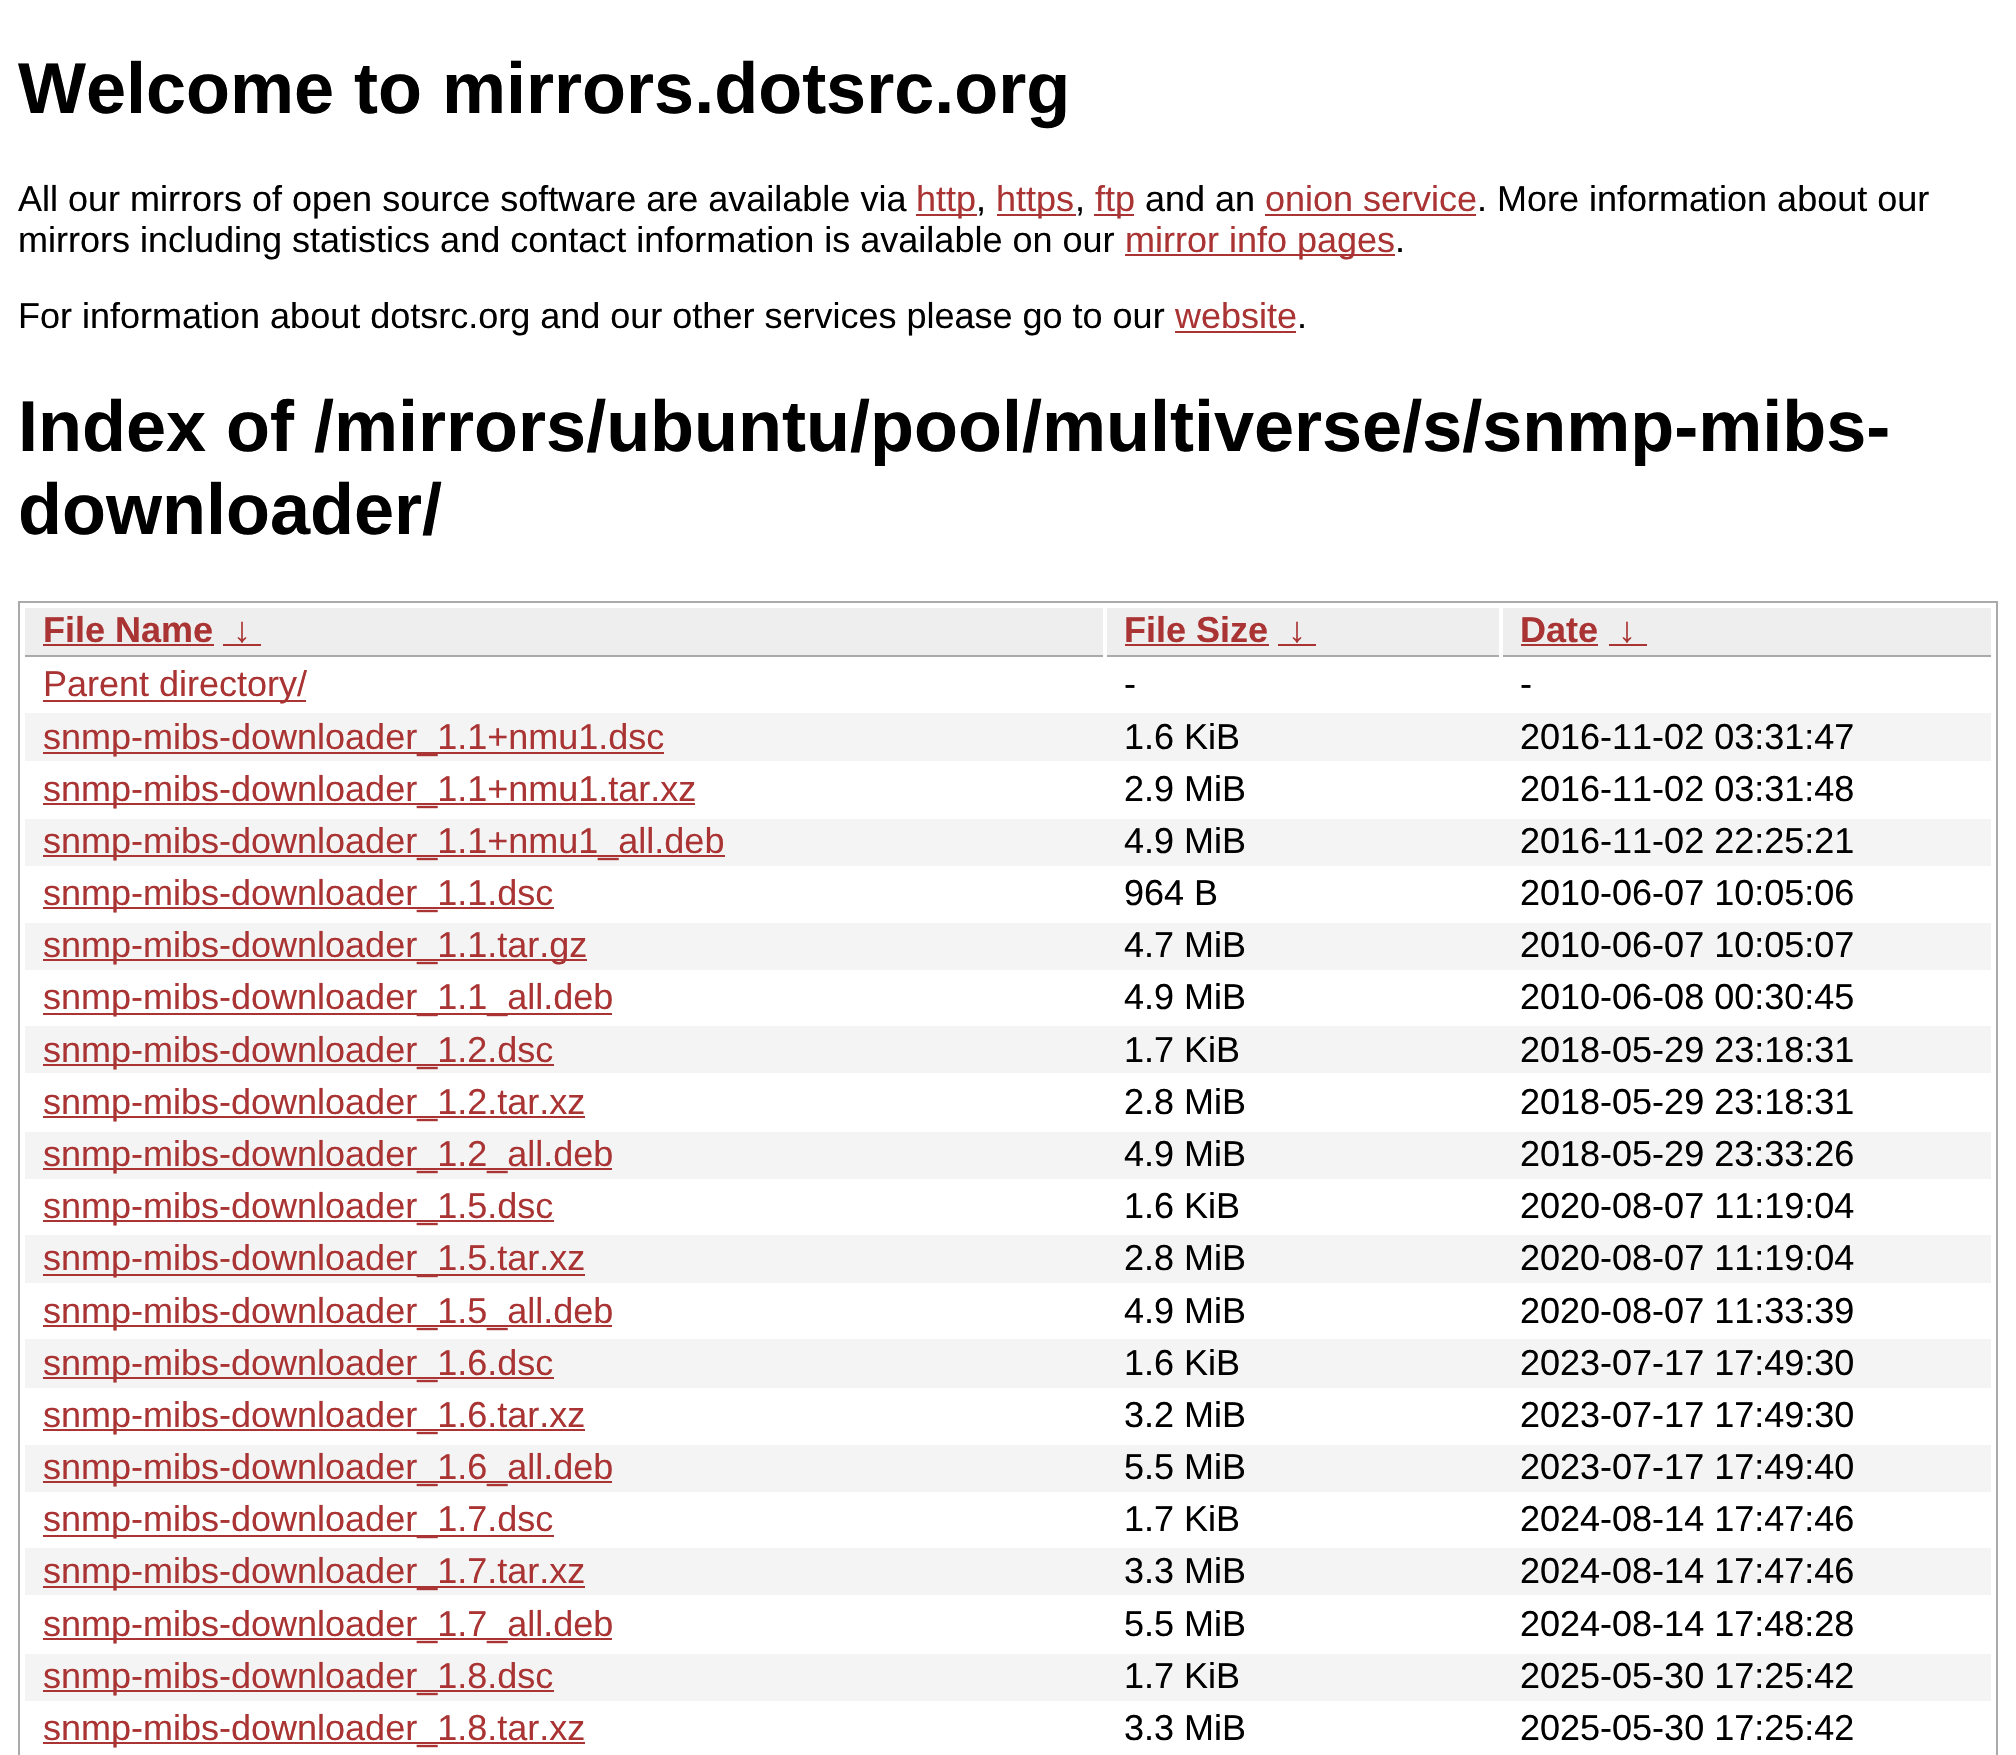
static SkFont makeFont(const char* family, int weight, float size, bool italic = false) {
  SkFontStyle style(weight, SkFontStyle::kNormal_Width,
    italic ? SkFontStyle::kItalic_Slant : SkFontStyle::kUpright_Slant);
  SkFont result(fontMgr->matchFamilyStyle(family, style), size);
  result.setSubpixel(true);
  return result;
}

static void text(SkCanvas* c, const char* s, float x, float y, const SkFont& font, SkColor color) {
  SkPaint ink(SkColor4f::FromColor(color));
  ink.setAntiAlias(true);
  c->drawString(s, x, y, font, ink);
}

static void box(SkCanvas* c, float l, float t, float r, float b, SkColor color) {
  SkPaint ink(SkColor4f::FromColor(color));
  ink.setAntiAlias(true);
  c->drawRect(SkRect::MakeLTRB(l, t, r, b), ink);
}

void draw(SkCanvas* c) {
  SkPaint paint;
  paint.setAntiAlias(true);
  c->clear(0xffffffff);
  SkFont face1 = makeFont("Liberation Sans", 700, 72);
  text(c, "Welcome to mirrors.dotsrc.org", 18, 113, face1, 0xff000000);
  SkFont face2 = makeFont("Liberation Sans", 400, 36);
  text(c, "All our mirrors of open source software are available via", 18, 211, face2, 0xff000000);
  box(c, 916, 214, 977, 216, 0xffaa3333);
  text(c, "http", 916, 211, face2, 0xffaa3333);
  text(c, ",", 976, 211, face2, 0xff000000);
  box(c, 997, 214, 1076, 216, 0xffaa3333);
  text(c, "https", 996, 211, face2, 0xffaa3333);
  text(c, ",", 1075, 211, face2, 0xff000000);
  box(c, 1094, 214, 1134, 216, 0xffaa3333);
  text(c, "ftp", 1095, 211, face2, 0xffaa3333);
  text(c, "and an", 1145, 211, face2, 0xff000000);
  text(c, "onion service", 1265, 211, face2, 0xffaa3333);
  box(c, 1265, 214, 1476, 216, 0xffaa3333);
  text(c, ". More information about our", 1477, 211, face2, 0xff000000);
  text(c, "mirrors including statistics and contact information is available on our", 18, 252, face2, 0xff000000);
  box(c, 1125, 254, 1395, 256, 0xffaa3333);
  text(c, "mirror info pages", 1125, 252, face2, 0xffaa3333);
  text(c, ".", 1395, 252, face2, 0xff000000);
  text(c, "For information about dotsrc.org and our other services please go to our", 18, 328, face2, 0xff000000);
  text(c, "website", 1175, 328, face2, 0xffaa3333);
  box(c, 1175, 331, 1296, 333, 0xffaa3333);
  text(c, ".", 1297, 328, face2, 0xff000000);
  text(c, "Index of /mirrors/ubuntu/pool/multiverse/s/snmp-mibs-", 18, 451, face1, 0xff000000);
  text(c, "downloader/", 18, 534, face1, 0xff000000);
  paint.setStyle(SkPaint::kStroke_Style);
  paint.setStrokeWidth(2);
  paint.setColor(0xffaaaaaa);
  c->drawRect(SkRect::MakeLTRB(19, 602, 1997, 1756), paint);
  box(c, 25, 608, 1103, 655, 0xffeeeeee);
  box(c, 25, 655, 1103, 657, 0xffaaaaaa);
  SkFont face3 = makeFont("Liberation Sans", 700, 36);
  text(c, "File Name", 43, 642, face3, 0xffaa3333);
  box(c, 43, 644, 214, 646, 0xffaa3333);
  text(c, "↓", 233, 642, face3, 0xffaa3333);
  box(c, 223, 644, 261, 646, 0xffaa3333);
  box(c, 1107, 608, 1499, 655, 0xffeeeeee);
  box(c, 1107, 655, 1499, 657, 0xffaaaaaa);
  text(c, "File Size", 1124, 642, face3, 0xffaa3333);
  box(c, 1125, 644, 1269, 646, 0xffaa3333);
  text(c, "↓", 1288, 642, face3, 0xffaa3333);
  box(c, 1278, 644, 1316, 646, 0xffaa3333);
  box(c, 1503, 608, 1991, 655, 0xffeeeeee);
  box(c, 1503, 655, 1991, 657, 0xffaaaaaa);
  text(c, "Date", 1520, 642, face3, 0xffaa3333);
  box(c, 1521, 644, 1598, 646, 0xffaa3333);
  text(c, "↓", 1618, 642, face3, 0xffaa3333);
  box(c, 1609, 644, 1647, 646, 0xffaa3333);
  box(c, 43, 700, 306, 702, 0xffaa3333);
  text(c, "Parent directory/", 43, 696, face2, 0xffaa3333);
  text(c, "-", 1124, 696, face2, 0xff000000);
  text(c, "-", 1520, 696, face2, 0xff000000);
  box(c, 25, 713, 1991, 761, 0xfff4f4f4);
  box(c, 43, 752, 664, 754, 0xffaa3333);
  text(c, "snmp-mibs-downloader_1.1+nmu1.dsc", 43, 749, face2, 0xffaa3333);
  text(c, "1.6 KiB", 1124, 749, face2, 0xff000000);
  text(c, "2016-11-02 03:31:47", 1520, 749, face2, 0xff000000);
  box(c, 43, 803, 695, 805, 0xffaa3333);
  text(c, "snmp-mibs-downloader_1.1+nmu1.tar.xz", 43, 801, face2, 0xffaa3333);
  text(c, "2.9 MiB", 1124, 801, face2, 0xff000000);
  text(c, "2016-11-02 03:31:48", 1520, 801, face2, 0xff000000);
  box(c, 25, 819, 1991, 866, 0xfff4f4f4);
  box(c, 43, 855, 725, 857, 0xffaa3333);
  text(c, "snmp-mibs-downloader_1.1+nmu1_all.deb", 43, 853, face2, 0xffaa3333);
  text(c, "4.9 MiB", 1124, 853, face2, 0xff000000);
  text(c, "2016-11-02 22:25:21", 1520, 853, face2, 0xff000000);
  box(c, 43, 907, 554, 909, 0xffaa3333);
  text(c, "snmp-mibs-downloader_1.1.dsc", 43, 905, face2, 0xffaa3333);
  text(c, "964 B", 1124, 905, face2, 0xff000000);
  text(c, "2010-06-07 10:05:06", 1520, 905, face2, 0xff000000);
  box(c, 25, 923, 1991, 970, 0xfff4f4f4);
  box(c, 43, 959, 587, 961, 0xffaa3333);
  text(c, "snmp-mibs-downloader_1.1.tar.gz", 43, 957, face2, 0xffaa3333);
  text(c, "4.7 MiB", 1124, 957, face2, 0xff000000);
  text(c, "2010-06-07 10:05:07", 1520, 957, face2, 0xff000000);
  box(c, 43, 1013, 612, 1015, 0xffaa3333);
  text(c, "snmp-mibs-downloader_1.1_all.deb", 43, 1009, face2, 0xffaa3333);
  text(c, "4.9 MiB", 1124, 1009, face2, 0xff000000);
  text(c, "2010-06-08 00:30:45", 1520, 1009, face2, 0xff000000);
  box(c, 25, 1026, 1991, 1073, 0xfff4f4f4);
  box(c, 43, 1064, 554, 1066, 0xffaa3333);
  text(c, "snmp-mibs-downloader_1.2.dsc", 43, 1062, face2, 0xffaa3333);
  text(c, "1.7 KiB", 1124, 1062, face2, 0xff000000);
  text(c, "2018-05-29 23:18:31", 1520, 1062, face2, 0xff000000);
  box(c, 43, 1116, 585, 1118, 0xffaa3333);
  text(c, "snmp-mibs-downloader_1.2.tar.xz", 43, 1114, face2, 0xffaa3333);
  text(c, "2.8 MiB", 1124, 1114, face2, 0xff000000);
  text(c, "2018-05-29 23:18:31", 1520, 1114, face2, 0xff000000);
  box(c, 25, 1132, 1991, 1179, 0xfff4f4f4);
  box(c, 43, 1168, 612, 1170, 0xffaa3333);
  text(c, "snmp-mibs-downloader_1.2_all.deb", 43, 1166, face2, 0xffaa3333);
  text(c, "4.9 MiB", 1124, 1166, face2, 0xff000000);
  text(c, "2018-05-29 23:33:26", 1520, 1166, face2, 0xff000000);
  box(c, 43, 1220, 554, 1222, 0xffaa3333);
  text(c, "snmp-mibs-downloader_1.5.dsc", 43, 1218, face2, 0xffaa3333);
  text(c, "1.6 KiB", 1124, 1218, face2, 0xff000000);
  text(c, "2020-08-07 11:19:04", 1520, 1218, face2, 0xff000000);
  box(c, 25, 1235, 1991, 1283, 0xfff4f4f4);
  box(c, 43, 1274, 585, 1276, 0xffaa3333);
  text(c, "snmp-mibs-downloader_1.5.tar.xz", 43, 1270, face2, 0xffaa3333);
  text(c, "2.8 MiB", 1124, 1270, face2, 0xff000000);
  text(c, "2020-08-07 11:19:04", 1520, 1270, face2, 0xff000000);
  box(c, 43, 1325, 612, 1327, 0xffaa3333);
  text(c, "snmp-mibs-downloader_1.5_all.deb", 43, 1323, face2, 0xffaa3333);
  text(c, "4.9 MiB", 1124, 1323, face2, 0xff000000);
  text(c, "2020-08-07 11:33:39", 1520, 1323, face2, 0xff000000);
  box(c, 25, 1339, 1991, 1388, 0xfff4f4f4);
  box(c, 43, 1377, 554, 1379, 0xffaa3333);
  text(c, "snmp-mibs-downloader_1.6.dsc", 43, 1375, face2, 0xffaa3333);
  text(c, "1.6 KiB", 1124, 1375, face2, 0xff000000);
  text(c, "2023-07-17 17:49:30", 1520, 1375, face2, 0xff000000);
  box(c, 43, 1429, 585, 1431, 0xffaa3333);
  text(c, "snmp-mibs-downloader_1.6.tar.xz", 43, 1427, face2, 0xffaa3333);
  text(c, "3.2 MiB", 1124, 1427, face2, 0xff000000);
  text(c, "2023-07-17 17:49:30", 1520, 1427, face2, 0xff000000);
  box(c, 25, 1445, 1991, 1492, 0xfff4f4f4);
  box(c, 43, 1481, 612, 1483, 0xffaa3333);
  text(c, "snmp-mibs-downloader_1.6_all.deb", 43, 1479, face2, 0xffaa3333);
  text(c, "5.5 MiB", 1124, 1479, face2, 0xff000000);
  text(c, "2023-07-17 17:49:40", 1520, 1479, face2, 0xff000000);
  box(c, 43, 1535, 554, 1537, 0xffaa3333);
  text(c, "snmp-mibs-downloader_1.7.dsc", 43, 1531, face2, 0xffaa3333);
  text(c, "1.7 KiB", 1124, 1531, face2, 0xff000000);
  text(c, "2024-08-14 17:47:46", 1520, 1531, face2, 0xff000000);
  box(c, 25, 1548, 1991, 1595, 0xfff4f4f4);
  box(c, 43, 1586, 585, 1588, 0xffaa3333);
  text(c, "snmp-mibs-downloader_1.7.tar.xz", 43, 1583, face2, 0xffaa3333);
  text(c, "3.3 MiB", 1124, 1583, face2, 0xff000000);
  text(c, "2024-08-14 17:47:46", 1520, 1583, face2, 0xff000000);
  box(c, 43, 1638, 612, 1640, 0xffaa3333);
  text(c, "snmp-mibs-downloader_1.7_all.deb", 43, 1636, face2, 0xffaa3333);
  text(c, "5.5 MiB", 1124, 1636, face2, 0xff000000);
  text(c, "2024-08-14 17:48:28", 1520, 1636, face2, 0xff000000);
  box(c, 25, 1654, 1991, 1701, 0xfff4f4f4);
  box(c, 43, 1690, 554, 1692, 0xffaa3333);
  text(c, "snmp-mibs-downloader_1.8.dsc", 43, 1688, face2, 0xffaa3333);
  text(c, "1.7 KiB", 1124, 1688, face2, 0xff000000);
  text(c, "2025-05-30 17:25:42", 1520, 1688, face2, 0xff000000);
  box(c, 43, 1742, 585, 1744, 0xffaa3333);
  text(c, "snmp-mibs-downloader_1.8.tar.xz", 43, 1740, face2, 0xffaa3333);
  text(c, "3.3 MiB", 1124, 1740, face2, 0xff000000);
  text(c, "2025-05-30 17:25:42", 1520, 1740, face2, 0xff000000);
}
